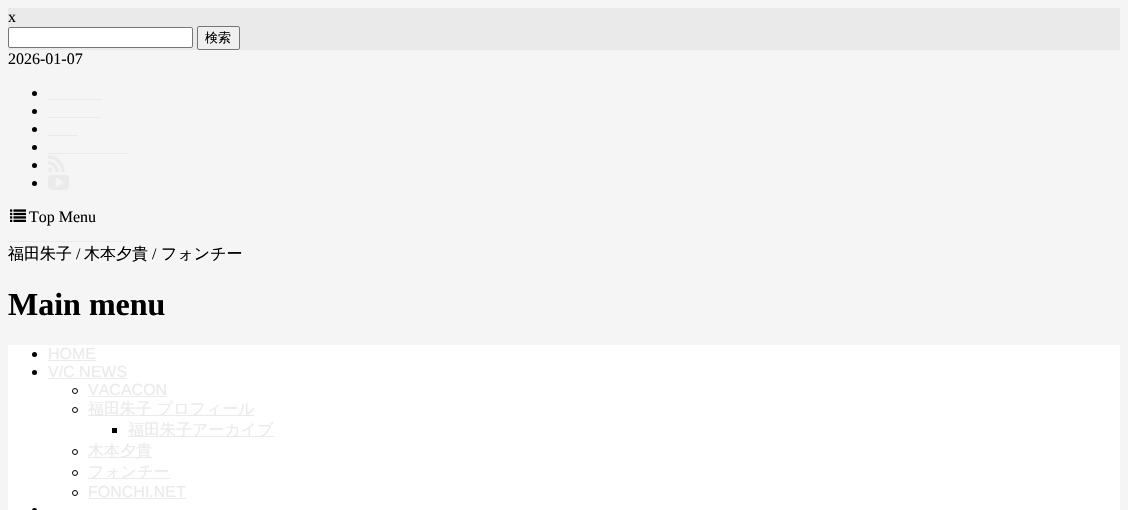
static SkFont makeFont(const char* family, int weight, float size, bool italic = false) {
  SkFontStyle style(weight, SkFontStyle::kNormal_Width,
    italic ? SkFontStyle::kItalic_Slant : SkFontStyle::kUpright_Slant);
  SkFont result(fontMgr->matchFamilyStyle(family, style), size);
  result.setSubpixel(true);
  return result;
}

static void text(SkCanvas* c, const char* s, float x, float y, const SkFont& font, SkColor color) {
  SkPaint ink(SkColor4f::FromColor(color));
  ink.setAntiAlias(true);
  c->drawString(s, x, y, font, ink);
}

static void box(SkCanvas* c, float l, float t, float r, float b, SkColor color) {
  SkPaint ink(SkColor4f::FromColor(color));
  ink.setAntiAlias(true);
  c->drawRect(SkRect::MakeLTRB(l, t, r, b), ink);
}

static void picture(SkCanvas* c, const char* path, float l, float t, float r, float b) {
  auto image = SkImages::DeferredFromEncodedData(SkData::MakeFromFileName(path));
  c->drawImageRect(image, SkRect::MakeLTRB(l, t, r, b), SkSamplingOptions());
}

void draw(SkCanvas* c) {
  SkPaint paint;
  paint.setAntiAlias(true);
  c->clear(0xfff5f5f5);
  box(c, 8, 8, 1120, 50, 0xffeaeaea);
  SkFont face1 = makeFont("Liberation Serif", 400, 16);
  text(c, "x", 8, 22, face1, 0xff000000);
  paint.setColor(0xffffffff);
  c->drawRoundRect(SkRect::MakeLTRB(8.5f, 27.5f, 192.5f, 47.5f), 1.5f, 1.5f, paint);
  paint.setStyle(SkPaint::kStroke_Style);
  paint.setStrokeWidth(1);
  paint.setColor(0xff767676);
  c->drawRoundRect(SkRect::MakeLTRB(8.5f, 27.5f, 192.5f, 47.5f), 1.5f, 1.5f, paint);
  paint.setStyle(SkPaint::kFill_Style);
  paint.setColor(0xffefefef);
  c->drawRoundRect(SkRect::MakeLTRB(197.5f, 26.5f, 239.5f, 49.5f), 1.5f, 1.5f, paint);
  paint.setStyle(SkPaint::kStroke_Style);
  paint.setColor(0xff767676);
  c->drawRoundRect(SkRect::MakeLTRB(197.5f, 26.5f, 239.5f, 49.5f), 1.5f, 1.5f, paint);
  SkFont face2 = makeFont("WenQuanYi Zen Hei", 500, 13);
  text(c, "検索", 205, 42, face2, 0xff000000);
  text(c, "2026-01-07", 8, 64, face1, 0xff000000);
  paint.setStyle(SkPaint::kFill_Style);
  paint.setColor(0xff000000);
  c->drawCircle(34.5f, 93.5f, 2.5f, paint);
  box(c, 48, 99, 102, 100, 0xffeaeaea);
  c->drawCircle(34.5f, 111.5f, 2.5f, paint);
  box(c, 48, 117, 101, 118, 0xffeaeaea);
  c->drawCircle(34.5f, 129.5f, 2.5f, paint);
  box(c, 48, 135, 78, 136, 0xffeaeaea);
  c->drawCircle(34.5f, 147.5f, 2.5f, paint);
  box(c, 48, 153, 127, 154, 0xffeaeaea);
  c->drawCircle(34.5f, 165.5f, 2.5f, paint);
  picture(c, "img_01.png", 48, 155, 65, 172);
  c->drawCircle(34.5f, 183.5f, 2.5f, paint);
  picture(c, "img_02.png", 48, 175, 69, 190);
  picture(c, "img_03.png", 10, 209, 26, 222);
  text(c, "Top Menu", 29, 222, face1, 0xff000000);
  box(c, 8, 241, 125, 242, 0xffeaeaea);
  SkFont face3 = makeFont("WenQuanYi Zen Hei", 500, 16);
  text(c, "福田朱子", 8, 259, face3, 0xff000000);
  text(c, "/", 76, 259, face1, 0xff000000);
  text(c, "木本夕貴", 84, 259, face3, 0xff000000);
  text(c, "/", 152, 259, face1, 0xff000000);
  text(c, "フォンチー", 161, 259, face3, 0xff000000);
  SkFont face4 = makeFont("Liberation Serif", 700, 32);
  text(c, "Main menu", 8, 315, face4, 0xff000000);
  box(c, 8, 345, 1120, 510, 0xffffffff);
  c->drawCircle(34.5f, 354.5f, 2.5f, paint);
  SkFont face5 = makeFont("Liberation Sans", 400, 16);
  text(c, "HOME", 48, 359, face5, 0xffeaeaea);
  box(c, 48, 360, 96, 361, 0xffeaeaea);
  c->drawCircle(34.5f, 372.5f, 2.5f, paint);
  text(c, "V/C NEWS", 48, 377, face5, 0xffeaeaea);
  box(c, 48, 378, 127, 379, 0xffeaeaea);
  paint.setStyle(SkPaint::kStroke_Style);
  c->drawCircle(75, 391, 2.5f, paint);
  text(c, "VACACON", 88, 395, face5, 0xffeaeaea);
  box(c, 88, 396, 167, 397, 0xffeaeaea);
  c->drawCircle(75, 410, 2.5f, paint);
  box(c, 88, 415, 254, 416, 0xffeaeaea);
  text(c, "福田朱子 プロフィール", 88, 414, face3, 0xffeaeaea);
  box(c, 112, 428, 117, 433, 0xff000000);
  box(c, 128, 436, 274, 437, 0xffeaeaea);
  text(c, "福田朱子アーカイブ", 128, 435, face3, 0xffeaeaea);
  c->drawCircle(75, 452, 2.5f, paint);
  box(c, 88, 457, 152, 458, 0xffeaeaea);
  text(c, "木本夕貴", 88, 456, face3, 0xffeaeaea);
  c->drawCircle(75, 473, 2.5f, paint);
  box(c, 88, 478, 170, 479, 0xffeaeaea);
  text(c, "フォンチー", 88, 477, face3, 0xffeaeaea);
  c->drawCircle(75, 493, 2.5f, paint);
  text(c, "FONCHI.NET", 88, 497, face5, 0xffeaeaea);
  box(c, 88, 498, 186, 499, 0xffeaeaea);
  paint.setStyle(SkPaint::kFill_Style);
  c->drawCircle(34.5f, 510.5f, 2.5f, paint);
}
